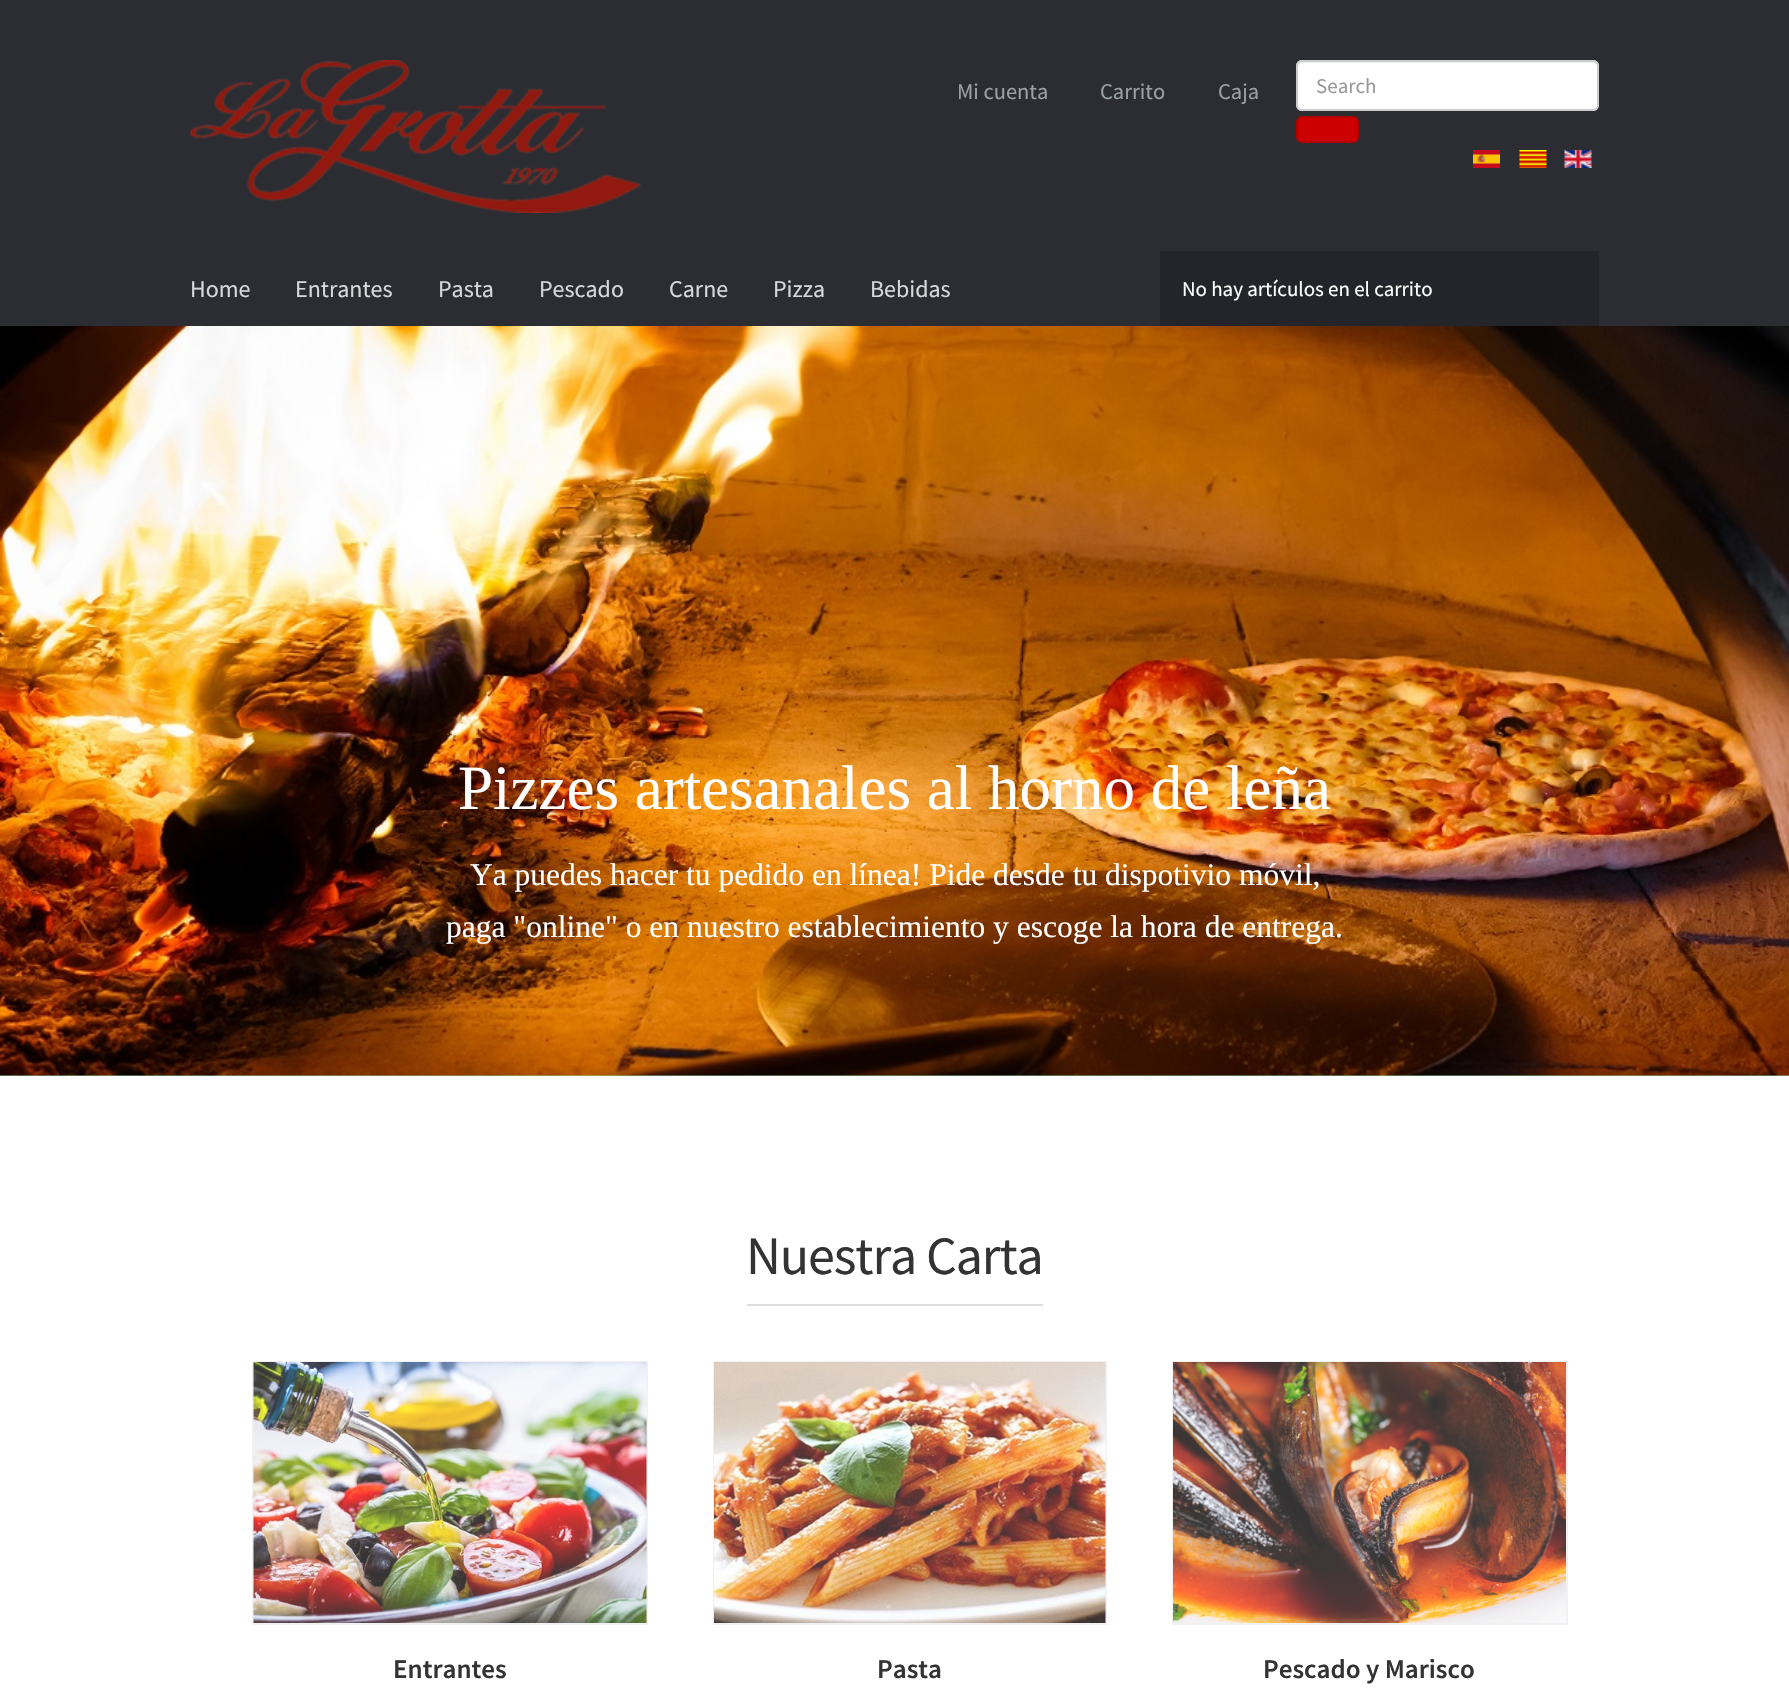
static SkFont makeFont(const char* family, int weight, float size, bool italic = false) {
  SkFontStyle style(weight, SkFontStyle::kNormal_Width,
    italic ? SkFontStyle::kItalic_Slant : SkFontStyle::kUpright_Slant);
  SkFont result(fontMgr->matchFamilyStyle(family, style), size);
  result.setSubpixel(true);
  return result;
}

static void text(SkCanvas* c, const char* s, float x, float y, const SkFont& font, SkColor color) {
  SkPaint ink(SkColor4f::FromColor(color));
  ink.setAntiAlias(true);
  c->drawString(s, x, y, font, ink);
}

static void spacedText(SkCanvas* c, const char* s, float x, float y, const SkFont& font, const SkPaint& ink, float letter, float word) {
  std::vector<SkGlyphID> glyphs(font.countText(s, strlen(s), SkTextEncoding::kUTF8));
  std::vector<float> xs(glyphs.size());
  font.textToGlyphs(s, strlen(s), SkTextEncoding::kUTF8, glyphs);
  font.getXPos(glyphs, xs, x);
  float extra = 0;
  for (size_t i = 0; i < glyphs.size(); i++) {
    xs[i] += extra;
    extra += letter + word * (glyphs[i] == font.unicharToGlyph(' '));
  }
  c->drawTextBlob(SkTextBlob::MakeFromPosHGlyphs(glyphs, xs, y, font), 0, 0, ink);
}

static void box(SkCanvas* c, float l, float t, float r, float b, SkColor color) {
  SkPaint ink(SkColor4f::FromColor(color));
  ink.setAntiAlias(true);
  c->drawRect(SkRect::MakeLTRB(l, t, r, b), ink);
}

static void roundBox(SkCanvas* c, float l, float t, float r, float b, float radius, SkColor color) {
  SkPaint ink(SkColor4f::FromColor(color));
  ink.setAntiAlias(true);
  c->drawRoundRect(SkRect::MakeLTRB(l, t, r, b), radius, radius, ink);
}

static void picture(SkCanvas* c, const char* path, float l, float t, float r, float b) {
  auto image = SkImages::DeferredFromEncodedData(SkData::MakeFromFileName(path));
  c->drawImageRect(image, SkRect::MakeLTRB(l, t, r, b), SkSamplingOptions());
}

void draw(SkCanvas* c) {
  SkPaint paint;
  paint.setAntiAlias(true);
  c->clear(0xffffffff);
  box(c, 0, 0, 1789, 326, 0xff2c2d33);
  picture(c, "img_01.png", 190, 60, 641, 213);
  SkFont face1 = makeFont("Source Sans Pro", 400, 22.5f);
  text(c, "Mi cuenta", 957, 99, face1, 0xff9aa0a7);
  text(c, "Carrito", 1100, 99, face1, 0xff9aa0a7);
  text(c, "Caja", 1218, 99, face1, 0xff9aa0a7);
  roundBox(c, 1296, 60, 1599, 111, 6, 0xffffffff);
  paint.setColor(0xffececec);
  c->drawPath(SkPathBuilder().moveTo(1302, 63).lineTo(1593, 63).cubicTo(1595, 63, 1598, 65, 1598, 68).lineTo(1598, 67).cubicTo(1598, 64, 1596, 62, 1593, 62).lineTo(1303, 62).cubicTo(1300, 62, 1298, 64, 1298, 67).lineTo(1298, 68).cubicTo(1298, 65, 1300, 63, 1302, 63).close().detach(), paint);
  paint.setStyle(SkPaint::kStroke_Style);
  paint.setStrokeWidth(2);
  paint.setColor(0xffcccccc);
  c->drawRoundRect(SkRect::MakeLTRB(1297, 61, 1598, 110), 5, 5, paint);
  SkFont face2 = makeFont("Source Sans Pro", 400, 21);
  text(c, "Search", 1316, 93, face2, 0xff999999);
  paint.setStyle(SkPaint::kFill_Style);
  paint.setColor(0xffcc0000);
  c->drawRoundRect(SkRect::MakeLTRB(1297, 117, 1358, 142), 5, 5, paint);
  paint.setStyle(SkPaint::kStroke_Style);
  paint.setColor(0xffb30000);
  c->drawRoundRect(SkRect::MakeLTRB(1297, 117, 1358, 142), 5, 5, paint);
  picture(c, "img_02.png", 1473, 150, 1500, 168);
  picture(c, "img_03.png", 1519, 150, 1547, 168);
  picture(c, "img_04.png", 1564, 150, 1592, 168);
  SkFont face3 = makeFont("Source Sans Pro", 400, 24);
  text(c, "Home", 190, 297, face3, 0xffd5d9db);
  text(c, "Entrantes", 295, 297, face3, 0xffd5d9db);
  text(c, "Pasta", 438, 297, face3, 0xffd5d9db);
  text(c, "Pescado", 539, 297, face3, 0xffd5d9db);
  text(c, "Carne", 669, 297, face3, 0xffd5d9db);
  text(c, "Pizza", 773, 297, face3, 0xffd5d9db);
  text(c, "Bebidas", 870, 297, face3, 0xffd5d9db);
  box(c, 1160, 251, 1599, 326, 0xff24252b);
  text(c, "No hay artículos en el carrito", 1182, 296, face2, 0xffffffff);
  box(c, 0, 1075, 1789, 1076, 0xff83cf8f);
  picture(c, "img_05.png", 0, 326, 1789, 1076);
  SkFont face4 = makeFont("Liberation Serif", 400, 63);
  text(c, "Pizzes artesanales al horno de leña", 458, 809, face4, 0xffffffff);
  SkFont face5 = makeFont("Liberation Serif", 400, 31.5f);
  text(c, "Ya puedes hacer tu pedido en línea! Pide desde tu dispotivio móvil,", 470, 885, face5, 0xffffffff);
  text(c, "paga \"online\" o en nuestro establecimiento y escoge la hora de entrega.", 446, 937, face5, 0xffffffff);
  SkFont face6 = makeFont("Source Sans Pro", 400, 54);
  paint.setStyle(SkPaint::kFill_Style);
  paint.setColor(0xff333333);
  spacedText(c, "Nuestra Carta", 746, 1274, face6, paint, -1.1f, 0);
  box(c, 747, 1304, 1043, 1306, 0xffdddddd);
  paint.setStyle(SkPaint::kStroke_Style);
  paint.setColor(0xfff1f1f1);
  c->drawRect(SkRect::MakeLTRB(253, 1362, 647, 1624), paint);
  picture(c, "img_06.png", 253, 1362, 647, 1623);
  SkFont face7 = makeFont("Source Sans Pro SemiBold", 600, 27);
  text(c, "Entrantes", 393, 1678, face7, 0xff333333);
  c->drawRect(SkRect::MakeLTRB(714, 1362, 1106, 1624), paint);
  picture(c, "img_07.png", 714, 1362, 1106, 1623);
  text(c, "Pasta", 877, 1678, face7, 0xff333333);
  c->drawRect(SkRect::MakeLTRB(1173, 1362, 1567, 1624), paint);
  picture(c, "img_08.png", 1173, 1362, 1566, 1623);
  text(c, "Pescado y Marisco", 1263, 1678, face7, 0xff333333);
}
